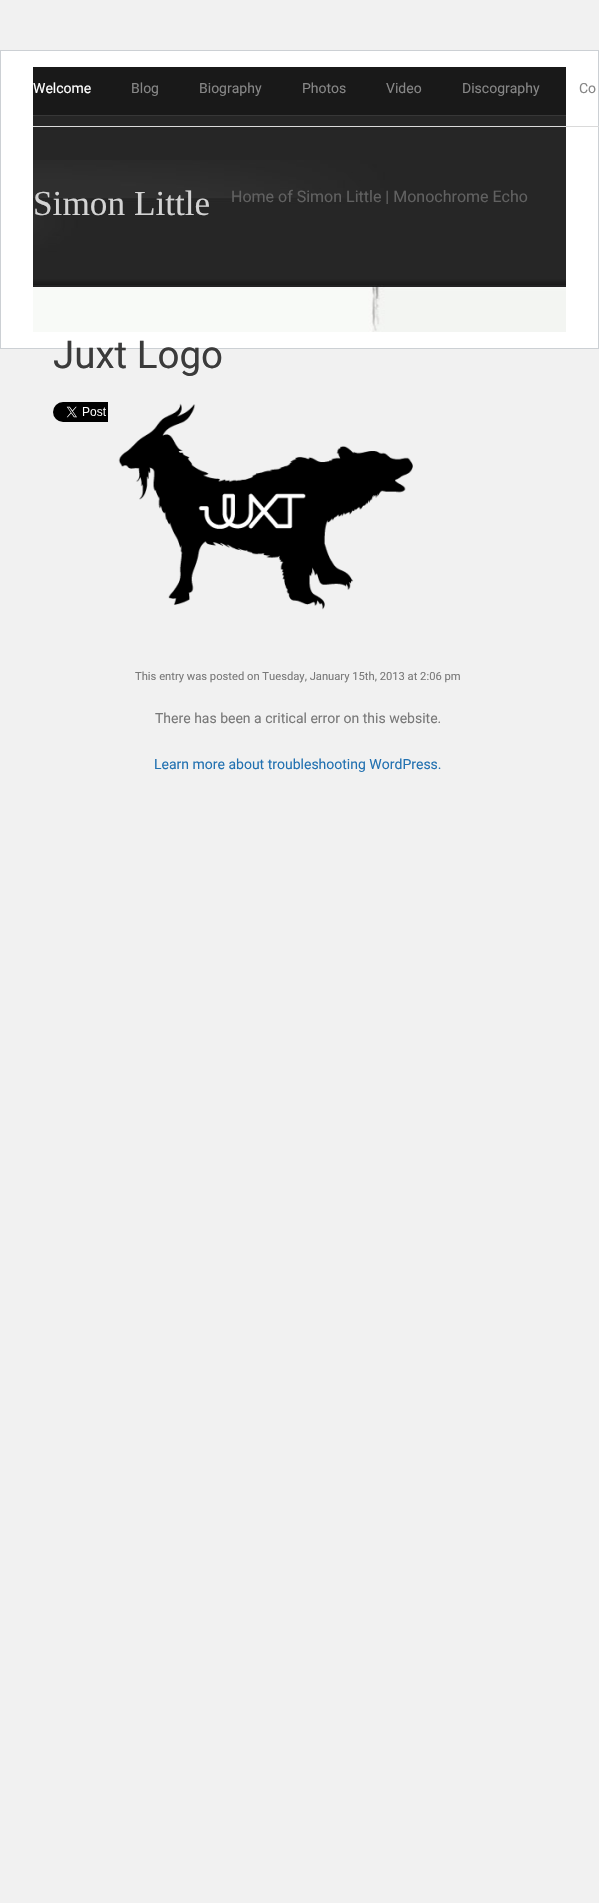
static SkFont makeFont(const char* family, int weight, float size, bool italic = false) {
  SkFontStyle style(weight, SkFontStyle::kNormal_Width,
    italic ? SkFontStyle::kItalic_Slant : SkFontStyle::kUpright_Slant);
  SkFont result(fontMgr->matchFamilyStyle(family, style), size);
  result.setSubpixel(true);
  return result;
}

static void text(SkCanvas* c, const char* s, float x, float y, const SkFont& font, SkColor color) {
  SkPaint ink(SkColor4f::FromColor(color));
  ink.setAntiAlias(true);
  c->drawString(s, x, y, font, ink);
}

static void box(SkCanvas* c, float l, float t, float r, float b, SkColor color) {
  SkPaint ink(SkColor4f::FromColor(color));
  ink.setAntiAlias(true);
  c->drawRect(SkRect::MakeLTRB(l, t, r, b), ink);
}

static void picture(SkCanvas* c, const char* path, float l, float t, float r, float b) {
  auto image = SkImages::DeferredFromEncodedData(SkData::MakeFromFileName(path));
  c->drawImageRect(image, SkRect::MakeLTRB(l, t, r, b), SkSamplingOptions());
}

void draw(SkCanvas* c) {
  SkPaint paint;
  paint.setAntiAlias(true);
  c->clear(0xfff1f1f1);
  paint.setColor(0xffffffff);
  c->drawRect(SkRect::MakeLTRB(0.5f, 50.5f, 598.5f, 348.5f), paint);
  paint.setStyle(SkPaint::kStroke_Style);
  paint.setStrokeWidth(1);
  paint.setColor(0xffccd0d4);
  c->drawRect(SkRect::MakeLTRB(0.5f, 50.5f, 598.5f, 348.5f), paint);
  box(c, 33, 67, 566, 115, 0xff191919);
  box(c, 33, 115, 566, 116, 0xff373737);
  SkFont face1 = makeFont("Roboto", 400, 14);
  text(c, "Welcome", 33, 93, face1, 0xffffffff);
  text(c, "Blog", 131, 93, face1, 0xff868686);
  text(c, "Biography", 199, 93, face1, 0xff868686);
  text(c, "Photos", 302, 93, face1, 0xff868686);
  text(c, "Video", 386, 93, face1, 0xff868686);
  text(c, "Discography", 462, 93, face1, 0xff868686);
  text(c, "Co", 579, 93, face1, 0xff868686);
  picture(c, "img_01.png", 33, 116, 566, 160);
  picture(c, "img_02.png", 33, 160, 566, 332);
  box(c, 33, 126, 599, 127, 0xffdadada);
  SkFont face2 = makeFont("Liberation Serif", 400, 35.25f);
  text(c, "Simon Little", 33, 215, face2, 0xffd3d3d3);
  SkFont face3 = makeFont("Roboto", 400, 16);
  text(c, "Home of Simon Little | Monochrome Echo", 231, 202, face3, 0xff616161);
  SkFont face4 = makeFont("Roboto", 400, 38.5f);
  text(c, "Juxt Logo", 53, 368, face4, 0xff3b3b3b);
  picture(c, "img_03.png", 53, 402, 108, 422);
  picture(c, "img_04.png", 118, 403, 413, 610);
  SkFont face5 = makeFont("Roboto", 400, 11.2f);
  text(c, "This entry was posted on Tuesday, January 15th, 2013 at 2:06 pm", 135, 680, face5, 0xff797979);
  text(c, "There has been a critical error on this website.", 155, 723, face1, 0xff797979);
  text(c, "Learn more about troubleshooting WordPress.", 154, 769, face1, 0xff2271b1);
}
